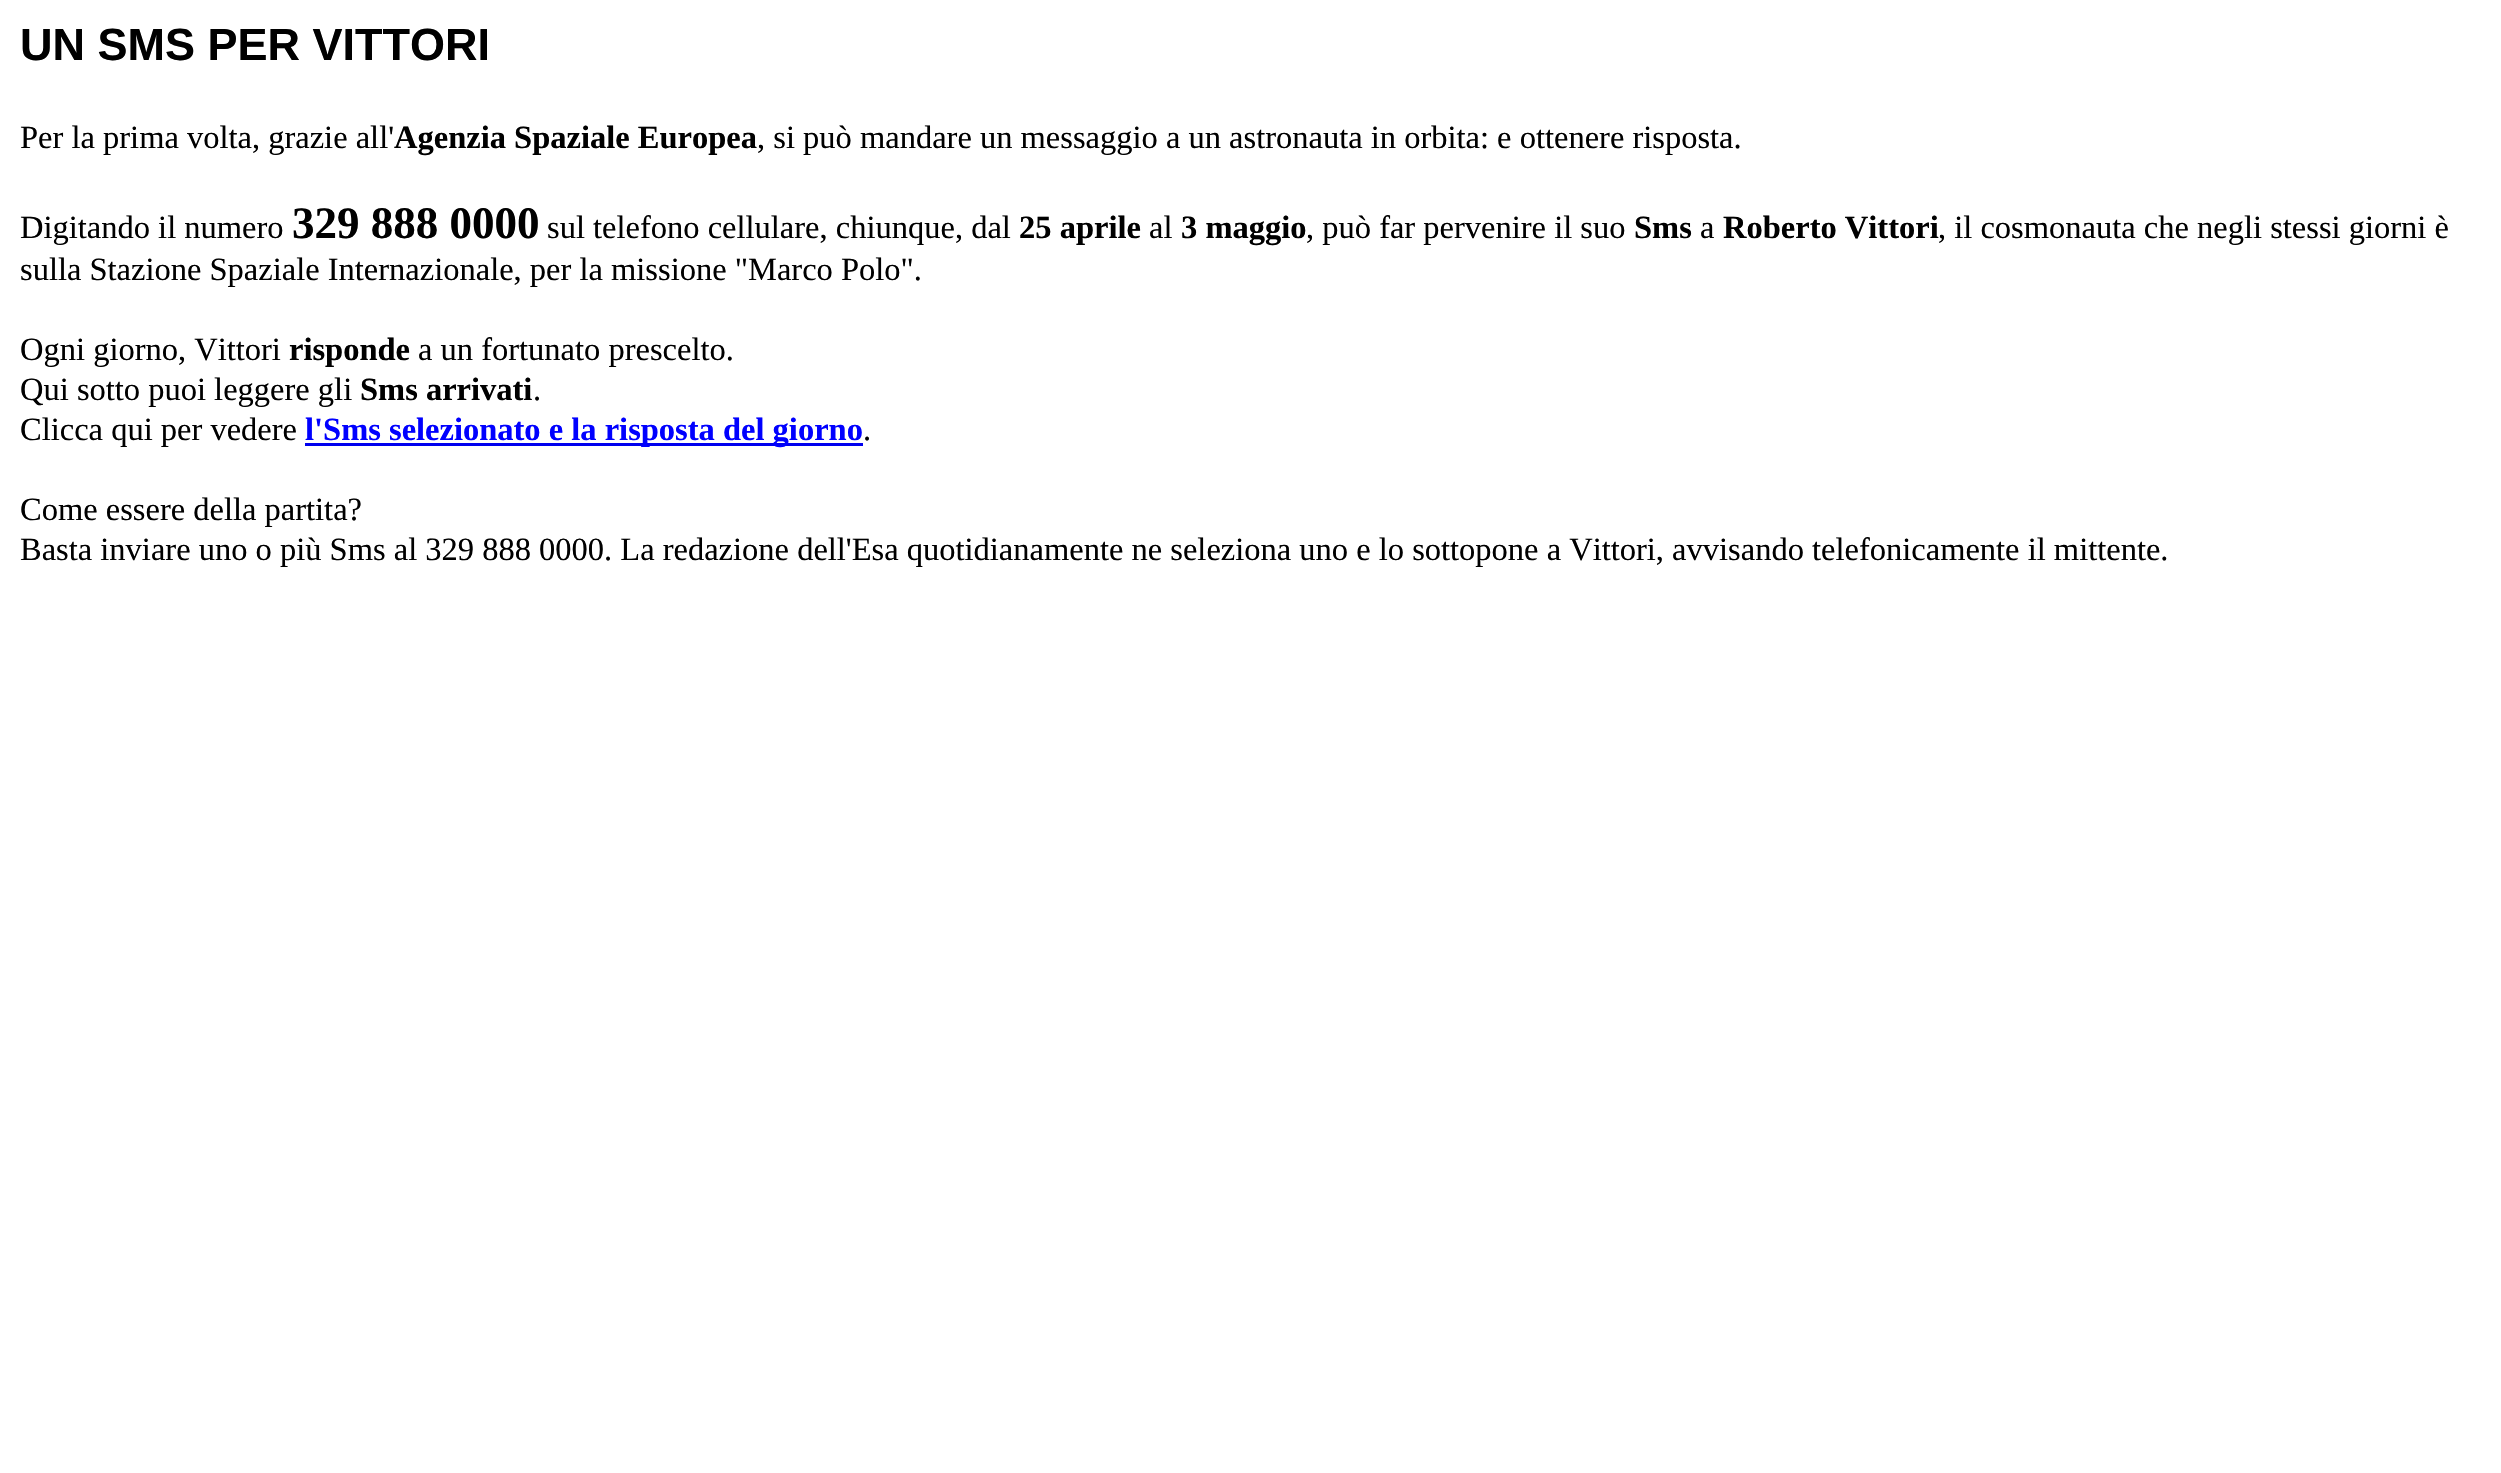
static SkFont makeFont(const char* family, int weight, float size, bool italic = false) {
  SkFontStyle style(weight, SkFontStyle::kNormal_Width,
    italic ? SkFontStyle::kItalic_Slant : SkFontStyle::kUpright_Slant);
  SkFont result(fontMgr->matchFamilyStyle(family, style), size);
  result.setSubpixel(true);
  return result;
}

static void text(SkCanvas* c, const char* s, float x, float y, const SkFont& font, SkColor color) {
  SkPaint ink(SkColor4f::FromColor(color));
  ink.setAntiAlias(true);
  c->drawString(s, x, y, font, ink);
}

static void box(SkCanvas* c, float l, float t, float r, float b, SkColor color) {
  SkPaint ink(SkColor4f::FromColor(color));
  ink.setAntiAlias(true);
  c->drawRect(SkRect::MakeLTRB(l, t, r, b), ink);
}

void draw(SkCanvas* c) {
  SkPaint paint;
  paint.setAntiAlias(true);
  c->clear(0xffffffff);
  SkFont face1 = makeFont("Liberation Sans", 700, 45);
  text(c, "UN SMS PER VITTORI", 20, 60, face1, 0xff000000);
  SkFont face2 = makeFont("Liberation Serif", 400, 32.5f);
  text(c, "Per la prima volta, grazie all'", 20, 148, face2, 0xff000000);
  SkFont face3 = makeFont("Liberation Serif", 700, 32.5f);
  text(c, "Agenzia Spaziale Europea", 394, 148, face3, 0xff000000);
  text(c, ", si può mandare un messaggio a un astronauta in orbita: e ottenere risposta.", 757, 148, face2, 0xff000000);
  text(c, "Digitando il numero", 20, 238, face2, 0xff000000);
  SkFont face4 = makeFont("Liberation Serif", 700, 45);
  text(c, "329 888 0000", 292, 238, face4, 0xff000000);
  text(c, "sul telefono cellulare, chiunque, dal", 547, 238, face2, 0xff000000);
  text(c, "25 aprile", 1019, 238, face3, 0xff000000);
  text(c, "al", 1149, 238, face2, 0xff000000);
  text(c, "3 maggio", 1181, 238, face3, 0xff000000);
  text(c, ", può far pervenire il suo", 1306, 238, face2, 0xff000000);
  text(c, "Sms", 1634, 238, face3, 0xff000000);
  text(c, "a", 1700, 238, face2, 0xff000000);
  text(c, "Roberto Vittori", 1723, 238, face3, 0xff000000);
  text(c, ", il cosmonauta che negli stessi giorni è", 1938, 238, face2, 0xff000000);
  text(c, "sulla Stazione Spaziale Internazionale, per la missione \"Marco Polo\".", 20, 280, face2, 0xff000000);
  text(c, "Ogni giorno, Vittori", 20, 360, face2, 0xff000000);
  text(c, "risponde", 289, 360, face3, 0xff000000);
  text(c, "a un fortunato prescelto.", 418, 360, face2, 0xff000000);
  text(c, "Qui sotto puoi leggere gli", 20, 400, face2, 0xff000000);
  text(c, "Sms arrivati", 360, 400, face3, 0xff000000);
  text(c, ".", 533, 400, face2, 0xff000000);
  text(c, "Clicca qui per vedere", 20, 440, face2, 0xff000000);
  box(c, 305, 443, 863, 446, 0xff0000ee);
  text(c, "l'Sms selezionato e la risposta del giorno", 305, 440, face3, 0xff0000ff);
  text(c, ".", 863, 440, face2, 0xff000000);
  text(c, "Come essere della partita?", 20, 520, face2, 0xff000000);
  text(c, "Basta inviare uno o più Sms al 329 888 0000. La redazione dell'Esa quotidianamente ne seleziona uno e lo sottopone a Vittori, avvisando telefonicamente il mittente.", 20, 560, face2, 0xff000000);
}
